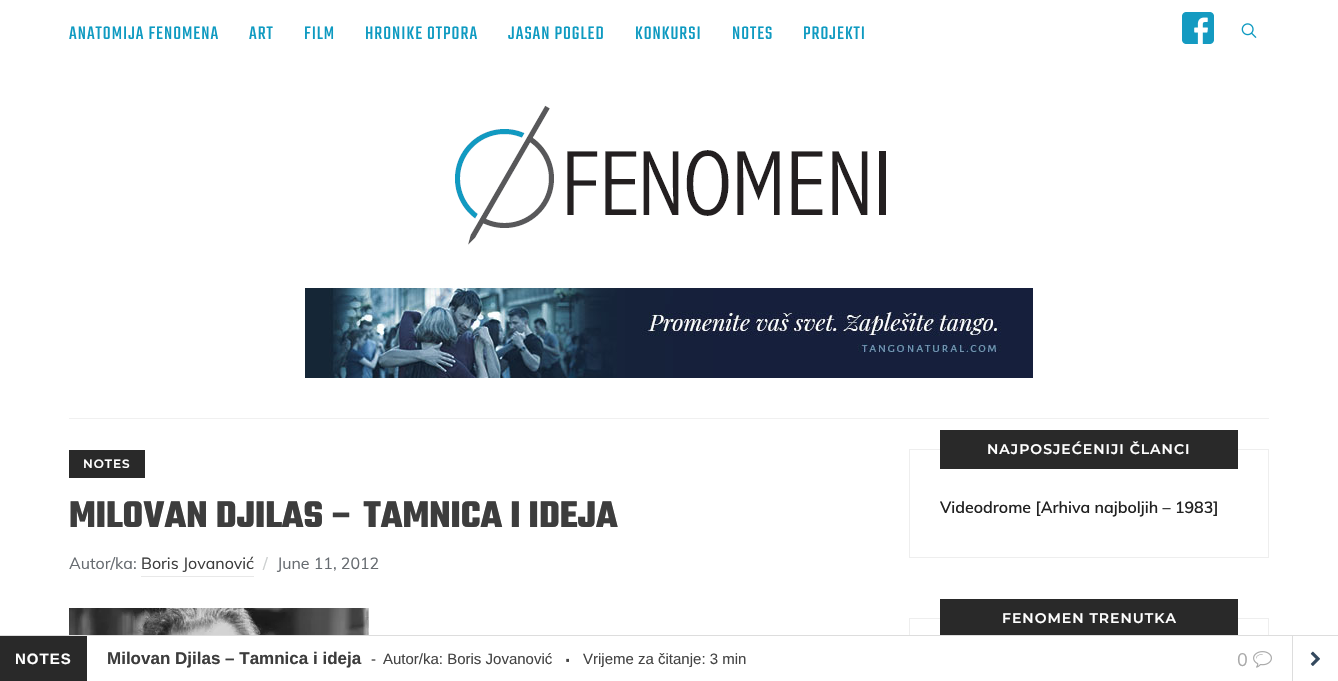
static SkFont makeFont(const char* family, int weight, float size, bool italic = false) {
  SkFontStyle style(weight, SkFontStyle::kNormal_Width,
    italic ? SkFontStyle::kItalic_Slant : SkFontStyle::kUpright_Slant);
  SkFont result(fontMgr->matchFamilyStyle(family, style), size);
  result.setSubpixel(true);
  return result;
}

static void text(SkCanvas* c, const char* s, float x, float y, const SkFont& font, SkColor color) {
  SkPaint ink(SkColor4f::FromColor(color));
  ink.setAntiAlias(true);
  c->drawString(s, x, y, font, ink);
}

static void spacedText(SkCanvas* c, const char* s, float x, float y, const SkFont& font, const SkPaint& ink, float letter, float word) {
  std::vector<SkGlyphID> glyphs(font.countText(s, strlen(s), SkTextEncoding::kUTF8));
  std::vector<float> xs(glyphs.size());
  font.textToGlyphs(s, strlen(s), SkTextEncoding::kUTF8, glyphs);
  font.getXPos(glyphs, xs, x);
  float extra = 0;
  for (size_t i = 0; i < glyphs.size(); i++) {
    xs[i] += extra;
    extra += letter + word * (glyphs[i] == font.unicharToGlyph(' '));
  }
  c->drawTextBlob(SkTextBlob::MakeFromPosHGlyphs(glyphs, xs, y, font), 0, 0, ink);
}

static void box(SkCanvas* c, float l, float t, float r, float b, SkColor color) {
  SkPaint ink(SkColor4f::FromColor(color));
  ink.setAntiAlias(true);
  c->drawRect(SkRect::MakeLTRB(l, t, r, b), ink);
}

static void picture(SkCanvas* c, const char* path, float l, float t, float r, float b) {
  auto image = SkImages::DeferredFromEncodedData(SkData::MakeFromFileName(path));
  c->drawImageRect(image, SkRect::MakeLTRB(l, t, r, b), SkSamplingOptions());
}

void draw(SkCanvas* c) {
  SkPaint paint;
  paint.setAntiAlias(true);
  c->clear(0xffffffff);
  SkFont face1 = makeFont("Teko", 400, 20);
  paint.setColor(0xff0e9ac1);
  spacedText(c, "ANATOMIJA FENOMENA", 69, 39, face1, paint, 1, 0);
  spacedText(c, "ART", 249, 39, face1, paint, 1, 0);
  spacedText(c, "FILM", 304, 39, face1, paint, 1, 0);
  spacedText(c, "HRONIKE OTPORA", 365, 39, face1, paint, 1, 0);
  spacedText(c, "JASAN POGLED", 508, 39, face1, paint, 1, 0);
  spacedText(c, "KONKURSI", 635, 39, face1, paint, 1, 0);
  spacedText(c, "NOTES", 732, 39, face1, paint, 1, 0);
  spacedText(c, "PROJEKTI", 803, 39, face1, paint, 1, 0);
  picture(c, "img_01.png", 1182, 12, 1214, 44);
  picture(c, "img_02.png", 1241, 23, 1257, 38);
  picture(c, "img_03.png", 455, 105, 886, 245);
  picture(c, "img_04.png", 305, 288, 1033, 378);
  box(c, 69, 418, 1269, 419, 0xfff0f0f0);
  box(c, 69, 450, 145, 478, 0xff292929);
  SkFont face2 = makeFont("Montserrat", 600, 12);
  paint.setColor(0xffffffff);
  spacedText(c, "NOTES", 83, 468, face2, paint, 1, 0);
  SkFont face3 = makeFont("Teko", 700, 40);
  text(c, "MILOVAN DJILAS – TAMNICA I IDEJA", 69, 527, face3, 0xff3d3d3d);
  SkFont face4 = makeFont("Muli", 400, 16);
  text(c, "Autor/ka:", 69, 569, face4, 0xff676c71);
  text(c, "Boris Jovanović", 141, 569, face4, 0xff3d3d3d);
  box(c, 141, 576, 254, 577, 0xffe8e8e8);
  text(c, "/", 263, 569, face4, 0xffcccfcf);
  text(c, "June 11, 2012", 277, 569, face4, 0xff676c71);
  picture(c, "img_05.png", 69, 608, 369, 635);
  paint.setStyle(SkPaint::kStroke_Style);
  paint.setStrokeWidth(1);
  paint.setColor(0xffeeeeee);
  c->drawRect(SkRect::MakeLTRB(909.5f, 449.5f, 1268.5f, 557.5f), paint);
  box(c, 940, 430, 1238, 469, 0xff292929);
  SkFont face5 = makeFont("Montserrat", 600, 14);
  paint.setStyle(SkPaint::kFill_Style);
  paint.setColor(0xffffffff);
  spacedText(c, "NAJPOSJEĆENIJI ČLANCI", 987, 454, face5, paint, 1, 0);
  SkFont face6 = makeFont("Muli", 600, 16);
  text(c, "Videodrome [Arhiva najboljih – 1983]", 940, 513, face6, 0xff222222);
  paint.setStyle(SkPaint::kStroke_Style);
  paint.setColor(0xffeeeeee);
  c->drawRect(SkRect::MakeLTRB(909.5f, 618.5f, 1268.5f, 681.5f), paint);
  box(c, 940, 599, 1238, 635, 0xff292929);
  paint.setStyle(SkPaint::kFill_Style);
  paint.setColor(0xffffffff);
  spacedText(c, "FENOMEN TRENUTKA", 1002, 623, face5, paint, 1, 0);
  box(c, 909, 636, 1269, 681, 0xffffffff);
  box(c, 0, 635, 1338, 636, 0xffdddddd);
  box(c, 0, 636, 87, 681, 0xff292929);
  SkFont face7 = makeFont("Liberation Sans", 700, 15);
  spacedText(c, "NOTES", 15, 664, face7, paint, 1, 0);
  SkFont face8 = makeFont("Liberation Sans", 700, 17);
  text(c, "Milovan Djilas – Tamnica i ideja", 107, 664, face8, 0xff3d3d3d);
  SkFont face9 = makeFont("Liberation Sans", 400, 15);
  text(c, "-", 371, 664, face9, 0xff444444);
  text(c, "Autor/ka: Boris Jovanović", 383, 664, face9, 0xff444444);
  SkFont face10 = makeFont("Liberation Sans", 400, 28);
  text(c, "·", 563, 668, face10, 0xff444444);
  text(c, "Vrijeme za čitanje: 3 min", 583, 664, face9, 0xff444444);
  SkFont face11 = makeFont("Muli", 400, 18);
  text(c, "0", 1237, 666, face11, 0xffaaaaaa);
  picture(c, "img_06.png", 1253, 651, 1272, 668);
  box(c, 1292, 636, 1293, 681, 0xffdddddd);
  picture(c, "img_07.png", 1310, 651, 1320, 666);
}
